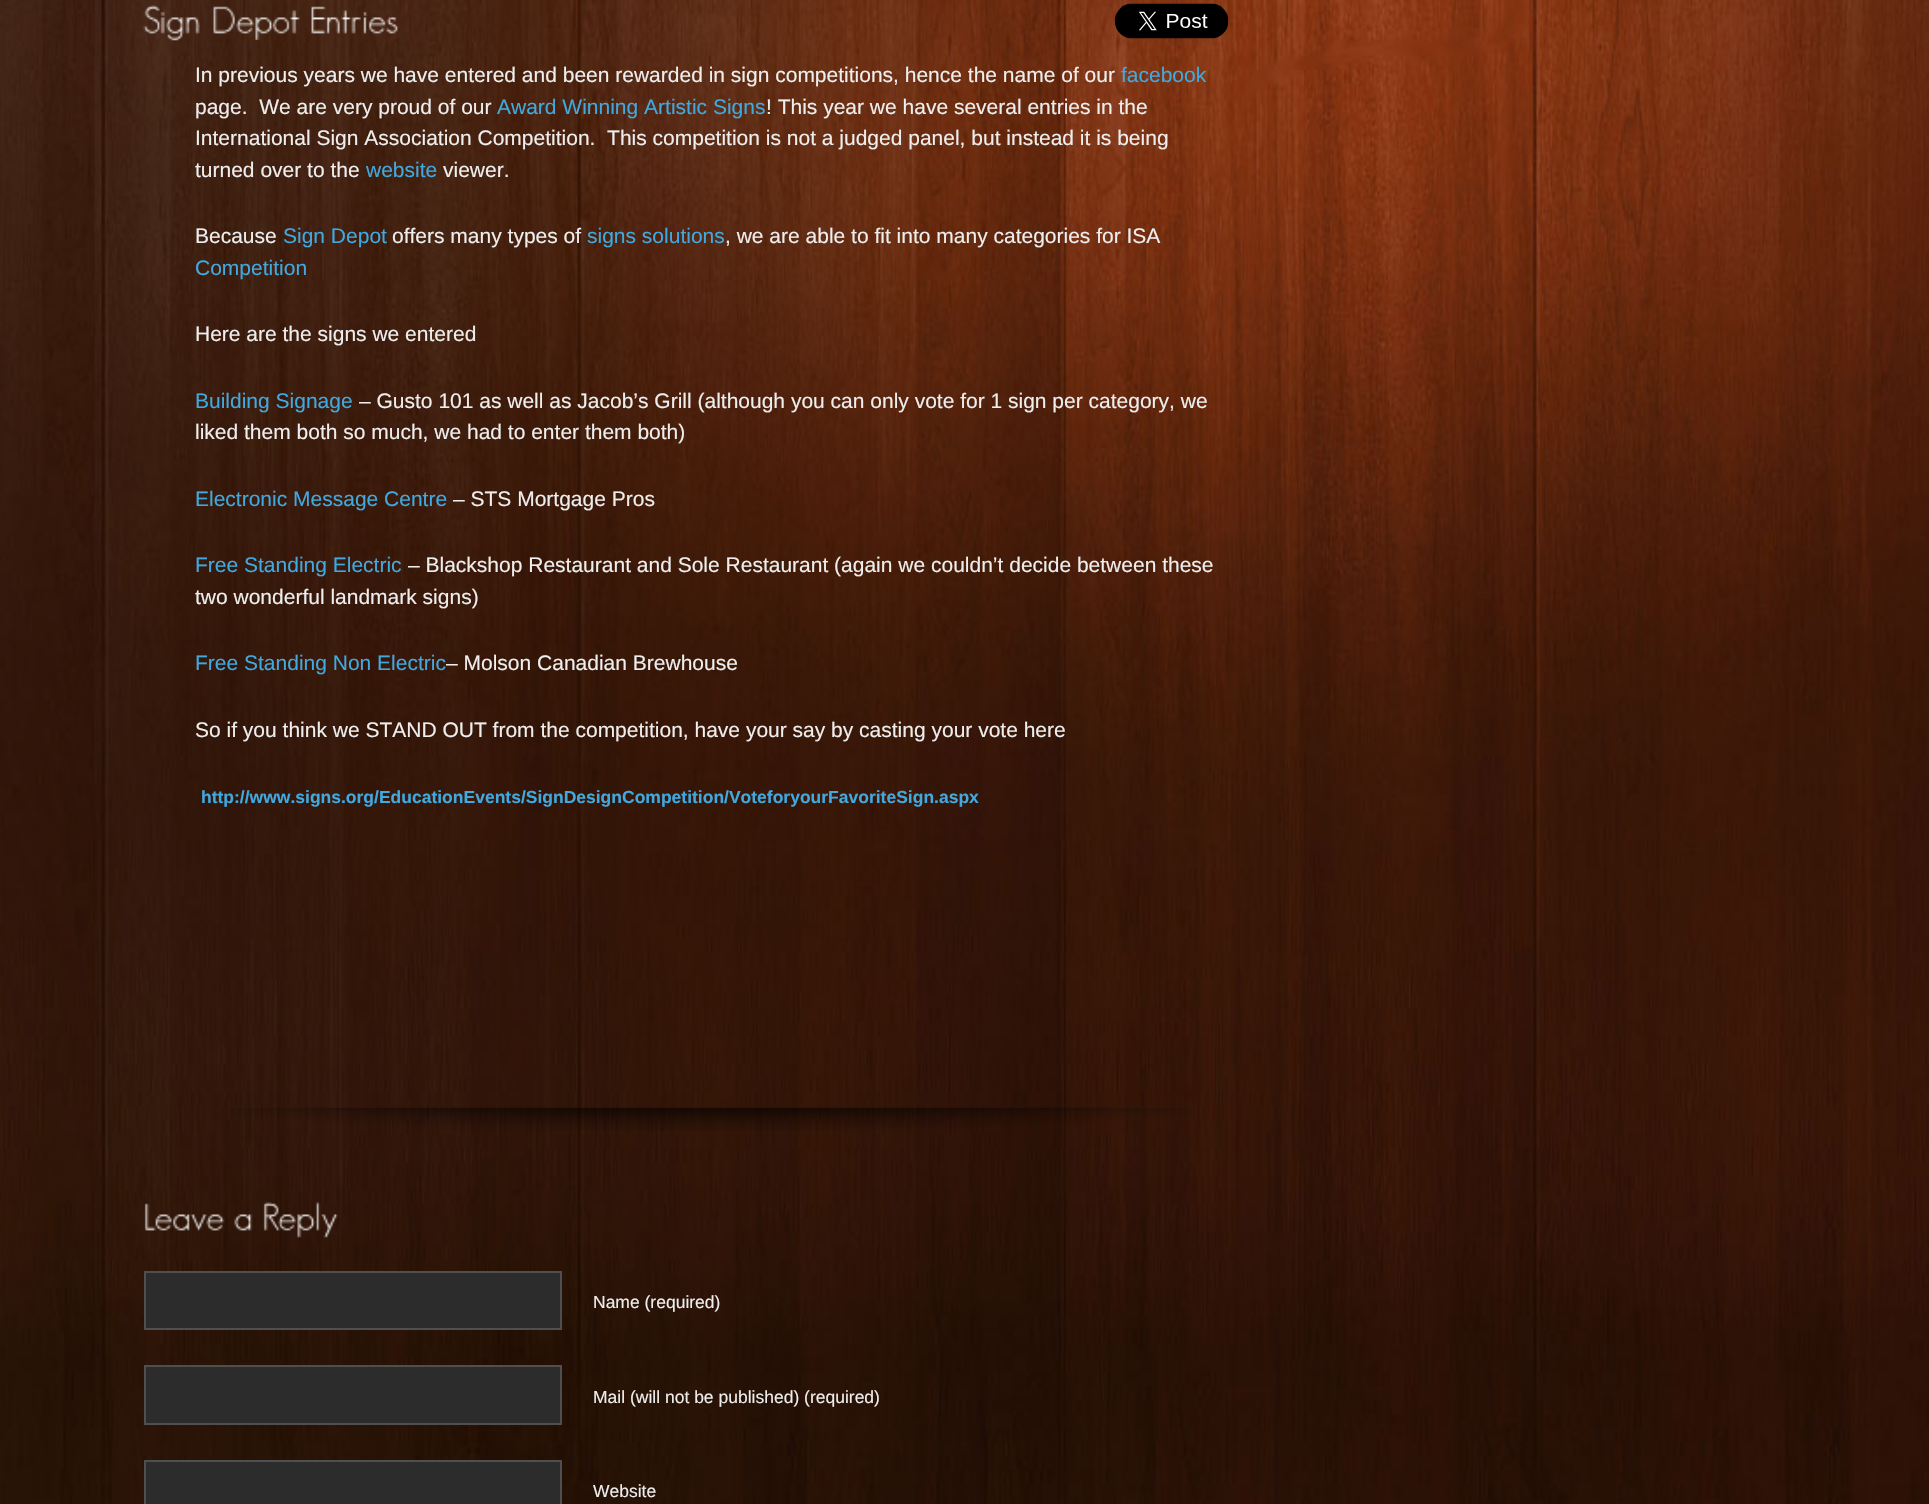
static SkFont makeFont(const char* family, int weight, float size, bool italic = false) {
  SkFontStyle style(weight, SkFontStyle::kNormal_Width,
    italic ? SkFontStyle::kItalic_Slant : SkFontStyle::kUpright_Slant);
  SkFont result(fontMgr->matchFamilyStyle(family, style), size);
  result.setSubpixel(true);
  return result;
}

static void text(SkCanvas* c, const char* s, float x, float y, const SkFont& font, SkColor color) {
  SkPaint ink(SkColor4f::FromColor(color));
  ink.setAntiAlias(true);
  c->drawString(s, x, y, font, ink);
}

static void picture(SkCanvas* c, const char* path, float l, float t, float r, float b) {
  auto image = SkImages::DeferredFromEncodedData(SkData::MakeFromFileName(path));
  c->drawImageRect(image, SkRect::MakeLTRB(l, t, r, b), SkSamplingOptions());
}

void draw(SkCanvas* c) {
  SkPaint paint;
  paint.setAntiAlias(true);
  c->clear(0xffffffff);
  picture(c, "img_01.png", 0, 0, 1929, 1504);
  picture(c, "img_02.png", 143, 5, 200, 41);
  picture(c, "img_03.png", 213, 6, 300, 40);
  picture(c, "img_04.png", 311, 6, 398, 34);
  picture(c, "img_05.png", 1114, 3, 1229, 39);
  SkFont face1 = makeFont("Liberation Sans", 400, 21);
  text(c, "In previous years we have entered and been rewarded in sign competitions, hence the name of our", 195, 82, face1, 0xffeeeeee);
  text(c, "facebook", 1121, 82, face1, 0xff40a9e0);
  text(c, "page.  We are very proud of our", 195, 114, face1, 0xffeeeeee);
  text(c, "Award Winning Artistic Signs", 497, 114, face1, 0xff40a9e0);
  text(c, "! This year we have several entries in the", 766, 114, face1, 0xffeeeeee);
  text(c, "International Sign Association Competition.  This competition is not a judged panel, but instead it is being", 195, 145, face1, 0xffeeeeee);
  text(c, "turned over to the", 195, 177, face1, 0xffeeeeee);
  text(c, "website", 366, 177, face1, 0xff40a9e0);
  text(c, "viewer.", 443, 177, face1, 0xffeeeeee);
  text(c, "Because", 195, 243, face1, 0xffeeeeee);
  text(c, "Sign Depot", 283, 243, face1, 0xff40a9e0);
  text(c, "offers many types of", 392, 243, face1, 0xffeeeeee);
  text(c, "signs solutions", 587, 243, face1, 0xff40a9e0);
  text(c, ", we are able to fit into many categories for ISA", 725, 243, face1, 0xffeeeeee);
  text(c, "Competition", 195, 275, face1, 0xff40a9e0);
  text(c, "Here are the signs we entered", 195, 341, face1, 0xffeeeeee);
  text(c, "Building Signage", 195, 408, face1, 0xff40a9e0);
  text(c, "– Gusto 101 as well as Jacob’s Grill (although you can only vote for 1 sign per category, we", 359, 408, face1, 0xffeeeeee);
  text(c, "liked them both so much, we had to enter them both)", 195, 439, face1, 0xffeeeeee);
  text(c, "Electronic Message Centre", 195, 506, face1, 0xff40a9e0);
  text(c, "– STS Mortgage Pros", 453, 506, face1, 0xffeeeeee);
  text(c, "Free Standing Electric", 195, 572, face1, 0xff40a9e0);
  text(c, "– Blackshop Restaurant and Sole Restaurant (again we couldn’t decide between these", 408, 572, face1, 0xffeeeeee);
  text(c, "two wonderful landmark signs)", 195, 604, face1, 0xffeeeeee);
  text(c, "Free Standing Non Electric", 195, 670, face1, 0xff40a9e0);
  text(c, "– Molson Canadian Brewhouse", 446, 670, face1, 0xffeeeeee);
  text(c, "So if you think we STAND OUT from the competition, have your say by casting your vote here", 195, 737, face1, 0xffeeeeee);
  SkFont face2 = makeFont("Liberation Sans", 700, 17.5f);
  text(c, "http://www.signs.org/EducationEvents/SignDesignCompetition/VoteforyourFavoriteSign.aspx", 201, 803, face2, 0xff40a9e0);
  picture(c, "img_06.png", 227, 1107, 1193, 1131);
  picture(c, "img_07.png", 144, 1203, 225, 1231);
  picture(c, "img_08.png", 234, 1214, 253, 1231);
  picture(c, "img_09.png", 263, 1202, 338, 1238);
  paint.setColor(0xff2c2c2c);
  c->drawRect(SkRect::MakeLTRB(145, 1272, 561, 1329), paint);
  paint.setStyle(SkPaint::kStroke_Style);
  paint.setStrokeWidth(2);
  paint.setColor(0xff4f4f4f);
  c->drawRect(SkRect::MakeLTRB(145, 1272, 561, 1329), paint);
  SkFont face3 = makeFont("Liberation Sans", 400, 17.5f);
  text(c, "Name (required)", 593, 1308, face3, 0xffeeeeee);
  paint.setStyle(SkPaint::kFill_Style);
  paint.setColor(0xff2c2c2c);
  c->drawRect(SkRect::MakeLTRB(145, 1366, 561, 1424), paint);
  paint.setStyle(SkPaint::kStroke_Style);
  paint.setColor(0xff4f4f4f);
  c->drawRect(SkRect::MakeLTRB(145, 1366, 561, 1424), paint);
  text(c, "Mail (will not be published) (required)", 593, 1403, face3, 0xffeeeeee);
  paint.setStyle(SkPaint::kFill_Style);
  paint.setColor(0xff2c2c2c);
  c->drawRect(SkRect::MakeLTRB(145, 1461, 561, 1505), paint);
  paint.setStyle(SkPaint::kStroke_Style);
  paint.setColor(0xff4f4f4f);
  c->drawRect(SkRect::MakeLTRB(145, 1461, 561, 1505), paint);
  text(c, "Website", 593, 1497, face3, 0xffeeeeee);
}
